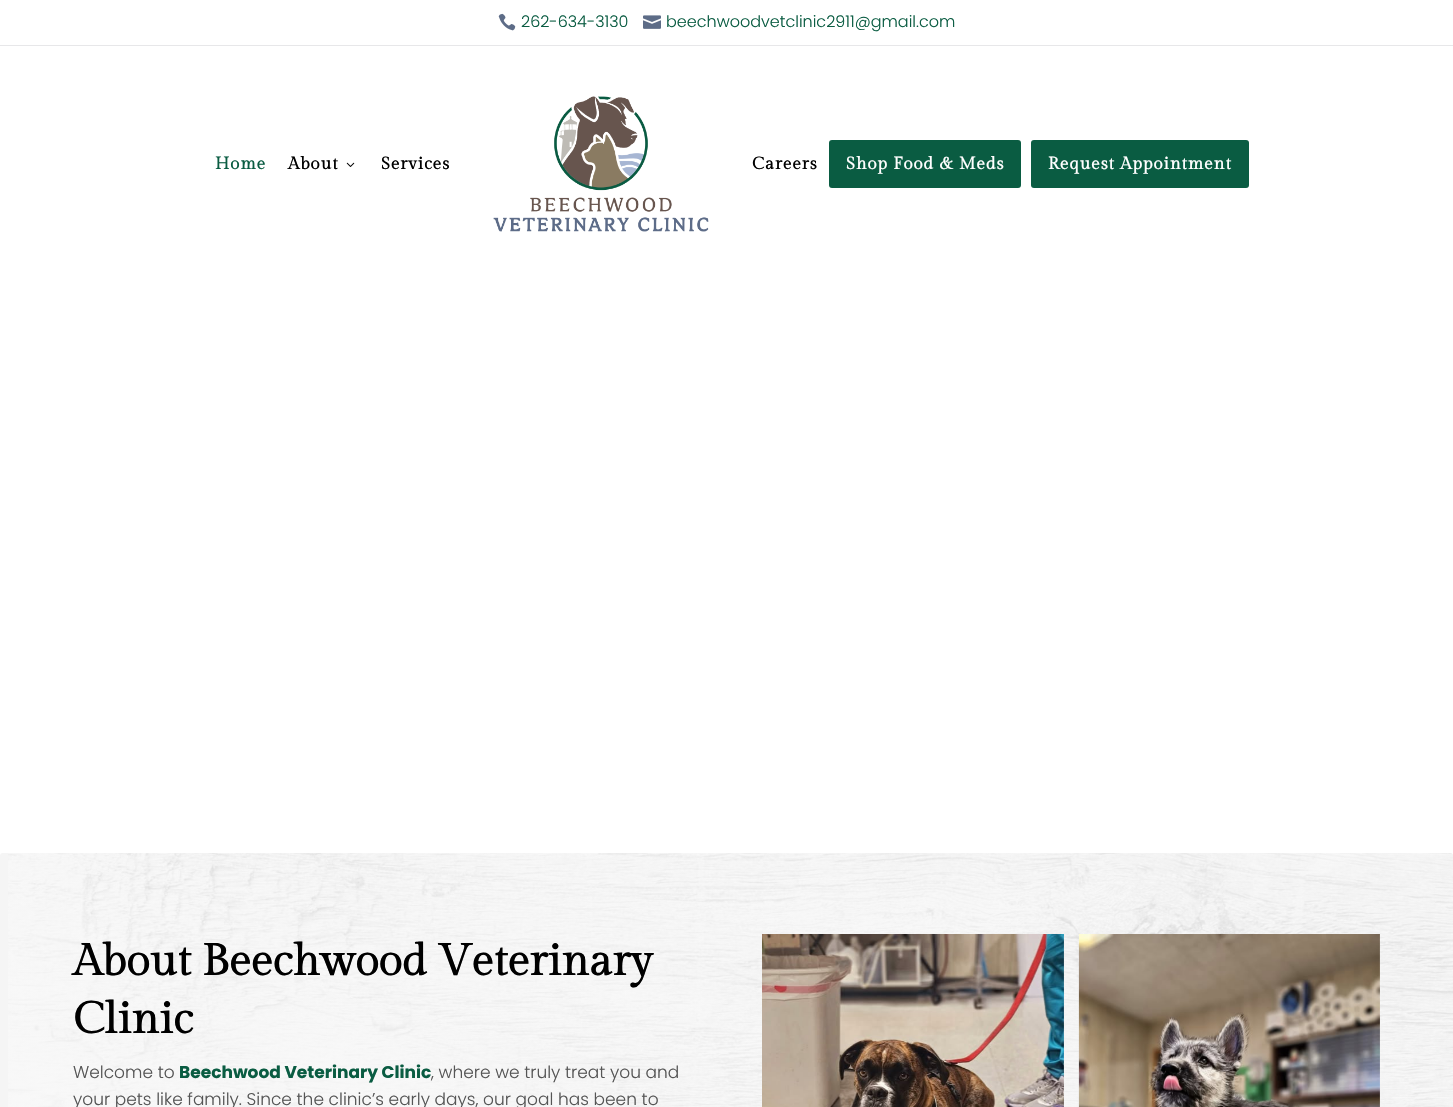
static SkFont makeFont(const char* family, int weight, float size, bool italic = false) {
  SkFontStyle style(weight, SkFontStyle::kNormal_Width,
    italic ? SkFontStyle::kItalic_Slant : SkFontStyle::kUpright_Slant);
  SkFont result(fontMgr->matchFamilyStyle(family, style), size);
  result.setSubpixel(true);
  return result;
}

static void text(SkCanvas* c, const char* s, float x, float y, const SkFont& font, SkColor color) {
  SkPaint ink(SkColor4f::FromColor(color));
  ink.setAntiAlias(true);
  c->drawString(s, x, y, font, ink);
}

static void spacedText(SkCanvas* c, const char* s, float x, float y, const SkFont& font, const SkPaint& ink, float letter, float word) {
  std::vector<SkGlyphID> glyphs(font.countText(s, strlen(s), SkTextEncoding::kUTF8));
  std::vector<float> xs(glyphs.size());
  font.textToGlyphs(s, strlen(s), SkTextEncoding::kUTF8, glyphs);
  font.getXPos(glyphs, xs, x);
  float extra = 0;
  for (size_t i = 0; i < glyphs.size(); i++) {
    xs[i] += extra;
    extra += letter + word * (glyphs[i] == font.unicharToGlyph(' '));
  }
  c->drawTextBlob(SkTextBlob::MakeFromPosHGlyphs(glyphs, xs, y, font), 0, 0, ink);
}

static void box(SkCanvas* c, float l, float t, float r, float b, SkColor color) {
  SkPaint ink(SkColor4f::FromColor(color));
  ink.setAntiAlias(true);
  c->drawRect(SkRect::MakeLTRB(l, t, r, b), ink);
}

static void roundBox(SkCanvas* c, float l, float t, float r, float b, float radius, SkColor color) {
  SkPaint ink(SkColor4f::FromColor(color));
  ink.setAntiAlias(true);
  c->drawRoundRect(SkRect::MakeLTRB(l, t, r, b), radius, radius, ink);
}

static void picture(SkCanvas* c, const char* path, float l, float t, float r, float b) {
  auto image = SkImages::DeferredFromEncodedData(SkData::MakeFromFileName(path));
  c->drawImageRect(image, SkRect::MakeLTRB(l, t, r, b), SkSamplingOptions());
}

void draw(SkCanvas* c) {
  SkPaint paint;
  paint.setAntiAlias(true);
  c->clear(0xffffffff);
  box(c, 0, 45, 1453, 46, 0xffe7e7e9);
  picture(c, "img_01.png", 498, 13, 516, 31);
  SkFont face1 = makeFont("Poppins", 300, 16);
  text(c, "262-634-3130", 521, 27, face1, 0xff0a5c42);
  picture(c, "img_02.png", 643, 15, 661, 29);
  text(c, "beechwoodvetclinic2911@gmail.com", 666, 27, face1, 0xff0a5c42);
  SkFont face2 = makeFont("Gilda Display", 700, 17);
  paint.setColor(0xff0a5c42);
  spacedText(c, "Home", 215, 169, face2, paint, 1, 0);
  paint.setColor(0xff000000);
  spacedText(c, "About", 288, 169, face2, paint, 1, 0);
  picture(c, "img_03.png", 346, 162, 355, 167);
  spacedText(c, "Services", 381, 169, face2, paint, 1, 0);
  picture(c, "img_04.png", 493, 96, 709, 232);
  spacedText(c, "Careers", 752, 169, face2, paint, 1, 0);
  roundBox(c, 829, 140, 1021, 188, 3, 0xff0a5c42);
  paint.setColor(0xffffffff);
  spacedText(c, "Shop Food & Meds", 846, 169, face2, paint, 1, 0);
  roundBox(c, 1031, 140, 1249, 188, 3, 0xff0a5c42);
  spacedText(c, "Request Appointment", 1048, 169, face2, paint, 1, 0);
  roundBox(c, 0, 853, 1453, 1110, 3, 0xfff5f5f5);
  picture(c, "img_05.png", 8, 853, 1453, 1107);
  SkFont face3 = makeFont("Gilda Display", 700, 44);
  text(c, "About Beechwood Veterinary", 73, 975, face3, 0xff000000);
  text(c, "Clinic", 73, 1033, face3, 0xff000000);
  SkFont face4 = makeFont("Poppins", 300, 17);
  text(c, "Welcome to", 73, 1078, face4, 0xff555555);
  SkFont face5 = makeFont("Poppins", 700, 17);
  text(c, "Beechwood Veterinary Clinic", 179, 1078, face5, 0xff0a5c42);
  text(c, ", where we truly treat you and", 431, 1078, face4, 0xff555555);
  text(c, "your pets like family. Since the clinic’s early days, our goal has been to", 73, 1105, face4, 0xff555555);
  picture(c, "img_06.png", 762, 934, 1064, 1107);
  picture(c, "img_07.png", 1078, 934, 1380, 1107);
}
